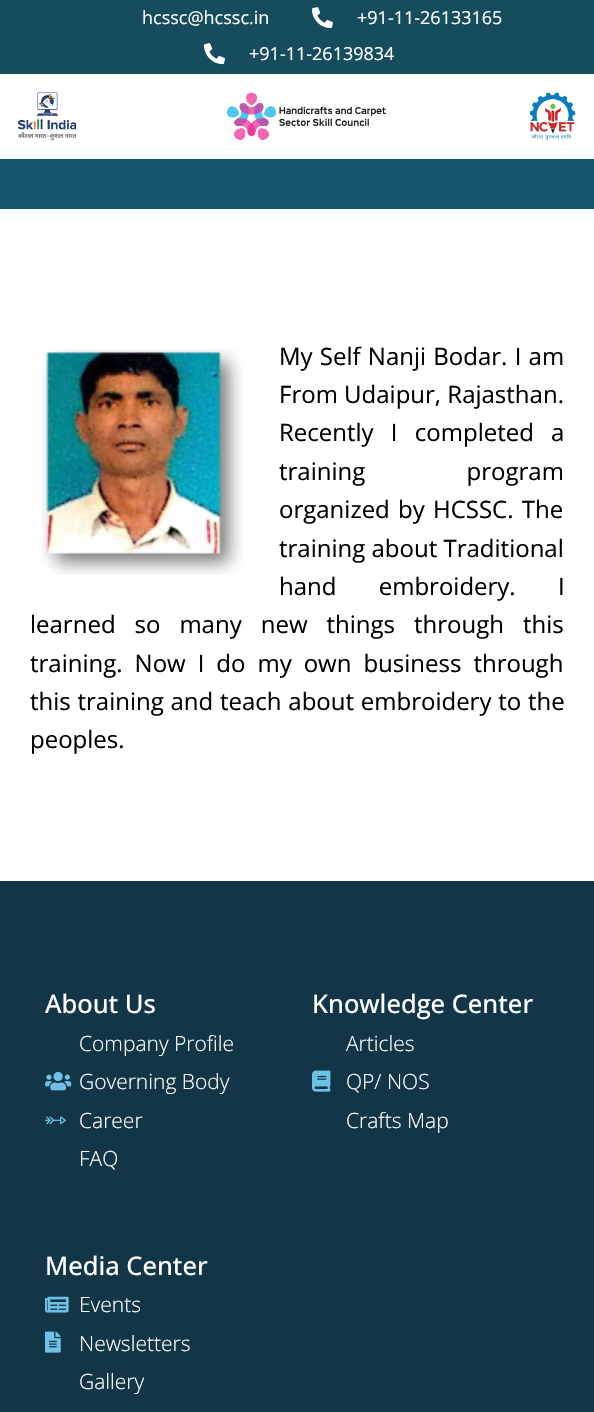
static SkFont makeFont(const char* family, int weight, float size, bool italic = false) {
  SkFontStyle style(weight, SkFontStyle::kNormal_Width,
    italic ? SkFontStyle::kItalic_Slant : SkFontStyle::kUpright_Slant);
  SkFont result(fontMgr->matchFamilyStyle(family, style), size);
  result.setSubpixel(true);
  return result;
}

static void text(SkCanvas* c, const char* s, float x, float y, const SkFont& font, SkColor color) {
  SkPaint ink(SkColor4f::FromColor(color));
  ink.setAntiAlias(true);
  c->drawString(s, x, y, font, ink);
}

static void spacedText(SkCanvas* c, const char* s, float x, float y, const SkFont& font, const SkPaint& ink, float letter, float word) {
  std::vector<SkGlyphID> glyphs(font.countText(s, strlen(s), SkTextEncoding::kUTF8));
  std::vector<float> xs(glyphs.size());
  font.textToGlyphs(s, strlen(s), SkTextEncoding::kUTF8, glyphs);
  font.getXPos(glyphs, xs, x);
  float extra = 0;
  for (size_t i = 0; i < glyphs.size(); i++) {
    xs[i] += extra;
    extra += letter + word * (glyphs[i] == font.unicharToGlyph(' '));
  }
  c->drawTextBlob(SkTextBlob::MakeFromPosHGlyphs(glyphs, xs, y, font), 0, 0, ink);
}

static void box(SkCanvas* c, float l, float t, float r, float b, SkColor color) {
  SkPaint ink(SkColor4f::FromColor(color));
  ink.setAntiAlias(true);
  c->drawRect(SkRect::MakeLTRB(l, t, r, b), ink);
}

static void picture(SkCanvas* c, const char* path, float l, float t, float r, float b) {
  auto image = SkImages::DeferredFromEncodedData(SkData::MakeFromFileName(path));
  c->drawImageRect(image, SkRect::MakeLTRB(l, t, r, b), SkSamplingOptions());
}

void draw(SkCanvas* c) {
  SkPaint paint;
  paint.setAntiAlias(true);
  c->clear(0xffffffff);
  box(c, 0, 0, 594, 74, 0xff154d5d);
  SkFont face1 = makeFont("Open Sans", 400, 18);
  text(c, "hcssc@hcssc.in", 142, 24, face1, 0xffffffff);
  picture(c, "img_01.png", 312, 7, 333, 29);
  text(c, "+91-11-26133165", 357, 24, face1, 0xffffffff);
  picture(c, "img_01.png", 204, 43, 225, 65);
  text(c, "+91-11-26139834", 249, 60, face1, 0xffffffff);
  picture(c, "img_02.png", 18, 92, 576, 141);
  box(c, 0, 159, 594, 209, 0xff12576b);
  SkFont face2 = makeFont("Open Sans", 400, 24);
  paint.setColor(0xff000000);
  spacedText(c, "My Self Nanji Bodar. I am", 279, 365, face2, paint, 0, 1);
  text(c, "From Udaipur, Rajasthan.", 279, 403, face2, 0xff000000);
  spacedText(c, "Recently I completed a", 279, 441, face2, paint, 0, 11);
  spacedText(c, "training program", 279, 480, face2, paint, 0, 95);
  spacedText(c, "organized by HCSSC. The", 279, 518, face2, paint, 0, 2);
  text(c, "training about Traditional", 279, 557, face2, 0xff000000);
  spacedText(c, "hand embroidery. I", 279, 595, face2, paint, 0, 36);
  spacedText(c, "learned so many new things through this", 30, 633, face2, paint, 0, 12.75f);
  spacedText(c, "training. Now I do my own business through", 30, 672, face2, paint, 0, 5.75f);
  spacedText(c, "this training and teach about embroidery to the", 30, 710, face2, paint, 0, 0.5f);
  text(c, "peoples.", 30, 748, face2, 0xff000000);
  picture(c, "img_03.png", 41, 349, 244, 575);
  box(c, 0, 881, 594, 1412, 0xff123648);
  SkFont face3 = makeFont("Open Sans", 500, 25.5f);
  text(c, "About Us", 45, 1013, face3, 0xffffffff);
  SkFont face4 = makeFont("Open Sans", 300, 21);
  text(c, "Company Profile", 79, 1051, face4, 0xffffffff);
  picture(c, "img_04.png", 45, 1071, 72, 1091);
  text(c, "Governing Body", 79, 1089, face4, 0xffffffff);
  picture(c, "img_05.png", 45, 1116, 66, 1125);
  text(c, "Career", 79, 1128, face4, 0xffffffff);
  text(c, "FAQ", 79, 1166, face4, 0xffffffff);
  text(c, "Knowledge Center", 312, 1013, face3, 0xffffffff);
  text(c, "Articles", 346, 1051, face4, 0xffffffff);
  picture(c, "img_06.png", 312, 1070, 331, 1092);
  text(c, "QP/ NOS", 346, 1089, face4, 0xffffffff);
  text(c, "Crafts Map", 346, 1128, face4, 0xffffffff);
  text(c, "Media Center", 45, 1275, face3, 0xffffffff);
  picture(c, "img_07.png", 45, 1296, 69, 1313);
  text(c, "Events", 79, 1312, face4, 0xffffffff);
  picture(c, "img_08.png", 45, 1331, 61, 1353);
  text(c, "Newsletters", 79, 1351, face4, 0xffffffff);
  text(c, "Gallery", 79, 1389, face4, 0xffffffff);
}
